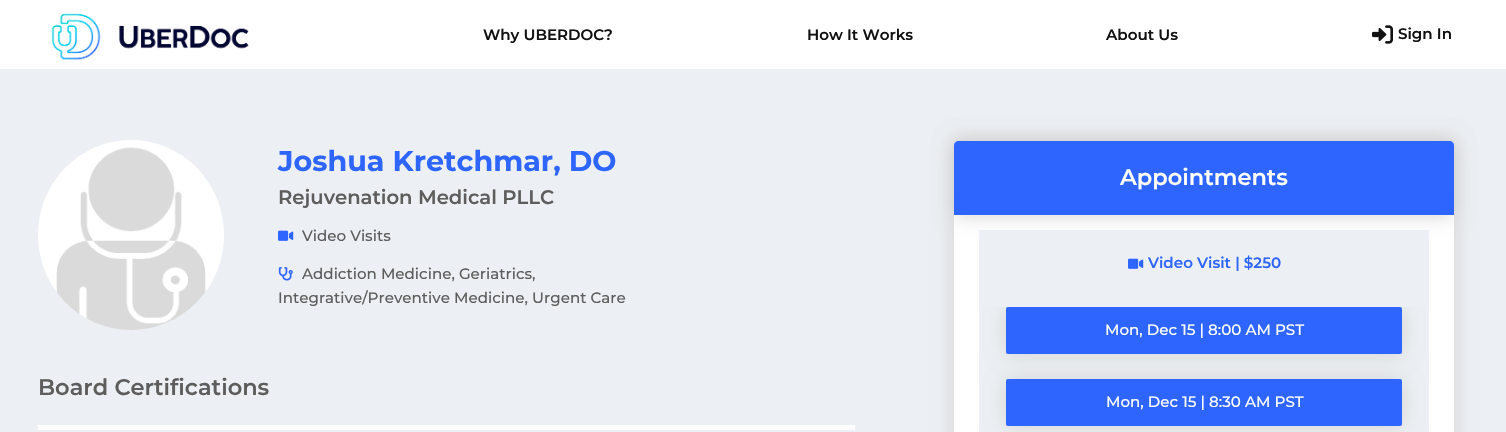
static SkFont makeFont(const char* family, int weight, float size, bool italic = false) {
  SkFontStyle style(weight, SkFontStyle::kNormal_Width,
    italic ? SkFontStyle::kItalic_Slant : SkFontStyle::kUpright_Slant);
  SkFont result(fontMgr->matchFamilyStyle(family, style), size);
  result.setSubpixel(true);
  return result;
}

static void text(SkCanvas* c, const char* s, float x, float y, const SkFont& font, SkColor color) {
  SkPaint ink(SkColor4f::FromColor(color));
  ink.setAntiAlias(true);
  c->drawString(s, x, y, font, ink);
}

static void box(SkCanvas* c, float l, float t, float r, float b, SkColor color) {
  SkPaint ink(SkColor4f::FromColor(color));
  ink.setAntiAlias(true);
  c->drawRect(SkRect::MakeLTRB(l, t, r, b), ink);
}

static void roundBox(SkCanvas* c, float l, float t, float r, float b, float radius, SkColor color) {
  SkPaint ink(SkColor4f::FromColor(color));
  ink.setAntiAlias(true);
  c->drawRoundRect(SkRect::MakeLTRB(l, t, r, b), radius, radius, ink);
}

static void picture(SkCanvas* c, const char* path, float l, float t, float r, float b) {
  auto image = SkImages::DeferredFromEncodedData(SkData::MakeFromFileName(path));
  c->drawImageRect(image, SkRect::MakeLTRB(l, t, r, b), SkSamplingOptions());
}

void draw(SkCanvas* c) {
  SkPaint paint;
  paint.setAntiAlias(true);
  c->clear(0xffecf0f4);
  box(c, 0, 0, 1506, 69, 0xffffffff);
  picture(c, "img_01.png", 51, 13, 249, 60);
  SkFont face1 = makeFont("Montserrat", 600, 15.1f);
  text(c, "Why UBERDOC?", 483, 40, face1, 0xff111111);
  text(c, "How It Works", 807, 40, face1, 0xff111111);
  text(c, "About Us", 1106, 40, face1, 0xff111111);
  picture(c, "img_02.png", 1372, 25, 1393, 44);
  text(c, "Sign In", 1398, 39, face1, 0xff111111);
  picture(c, "img_03.png", 38, 140, 224, 330);
  SkFont face2 = makeFont("Montserrat", 700, 28.6f);
  text(c, "Joshua Kretchmar, DO", 278, 171, face2, 0xff2e65ff);
  SkFont face3 = makeFont("Montserrat", 600, 19.6f);
  text(c, "Rejuvenation Medical PLLC", 278, 204, face3, 0xff5d5d5d);
  picture(c, "img_04.png", 278, 230, 294, 241);
  SkFont face4 = makeFont("Montserrat", 500, 15.1f);
  text(c, "Video Visits", 302, 241, face4, 0xff5d5d5d);
  picture(c, "img_05.png", 278, 267, 293, 281);
  text(c, "Addiction Medicine, Geriatrics,", 302, 279, face4, 0xff5d5d5d);
  text(c, "Integrative/Preventive Medicine, Urgent Care", 278, 303, face4, 0xff5d5d5d);
  SkFont face5 = makeFont("Montserrat", 600, 22.5f);
  text(c, "Board Certifications", 38, 395, face5, 0xff5d5d5d);
  box(c, 38, 425, 855, 430, 0xffffffff);
  paint.setColor(0xffd3d3d3);
  paint.setMaskFilter(SkMaskFilter::MakeBlur(kNormal_SkBlurStyle, 10));
  c->drawRoundRect(SkRect::MakeLTRB(953, 140, 1455, 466), 4, 4, paint);
  paint.setMaskFilter(nullptr);
  roundBox(c, 953, 140, 1455, 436, 4, 0xffffffff);
  paint.setStyle(SkPaint::kStroke_Style);
  paint.setStrokeWidth(1);
  paint.setColor(0x1f000000);
  c->drawRoundRect(SkRect::MakeLTRB(953.5f, 140.5f, 1454.5f, 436.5f), 3.5f, 3.5f, paint);
  paint.setStyle(SkPaint::kFill_Style);
  paint.setColor(0xffd3d3d3);
  paint.setMaskFilter(SkMaskFilter::MakeBlur(kNormal_SkBlurStyle, 10));
  c->drawRoundRect(SkRect::MakeLTRB(954, 141, 1454, 215), 4, 4, paint);
  paint.setMaskFilter(nullptr);
  paint.setColor(0xff2e65ff);
  c->drawPath(SkPathBuilder().moveTo(958, 141).lineTo(1450, 141).cubicTo(1452, 141, 1454, 143, 1454, 145).lineTo(1454, 215).lineTo(954, 215).lineTo(954, 145).cubicTo(954, 143, 956, 141, 958, 141).close().detach(), paint);
  text(c, "Appointments", 1120, 185, face5, 0xffffffff);
  box(c, 979, 230, 1429, 432, 0xffecf0f4);
  picture(c, "img_04.png", 1128, 258, 1144, 269);
  text(c, "Video Visit | $250", 1148, 268, face1, 0xff2e65ff);
  c->save();
  c->clipPath(SkPathBuilder().moveTo(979, 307).lineTo(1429, 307).lineTo(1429, 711).cubicTo(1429, 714.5f, 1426.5f, 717, 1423, 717).lineTo(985, 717).cubicTo(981.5f, 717, 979, 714.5f, 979, 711).close().detach(), true);
  paint.setColor(0xffd3d3d3);
  paint.setMaskFilter(SkMaskFilter::MakeBlur(kNormal_SkBlurStyle, 10));
  c->drawRoundRect(SkRect::MakeLTRB(1006, 307, 1402, 354), 2, 2, paint);
  paint.setMaskFilter(nullptr);
  c->restore();
  roundBox(c, 1006, 307, 1402, 354, 2, 0xff2e65ff);
  text(c, "Mon, Dec 15 | 8:00 AM PST", 1105, 335, face4, 0xffffffff);
  paint.setMaskFilter(SkMaskFilter::MakeBlur(kNormal_SkBlurStyle, 10));
  c->drawRoundRect(SkRect::MakeLTRB(1006, 379, 1402, 426), 2, 2, paint);
  paint.setMaskFilter(nullptr);
  roundBox(c, 1006, 379, 1402, 426, 2, 0xff2e65ff);
  text(c, "Mon, Dec 15 | 8:30 AM PST", 1106, 407, face4, 0xffffffff);
}
